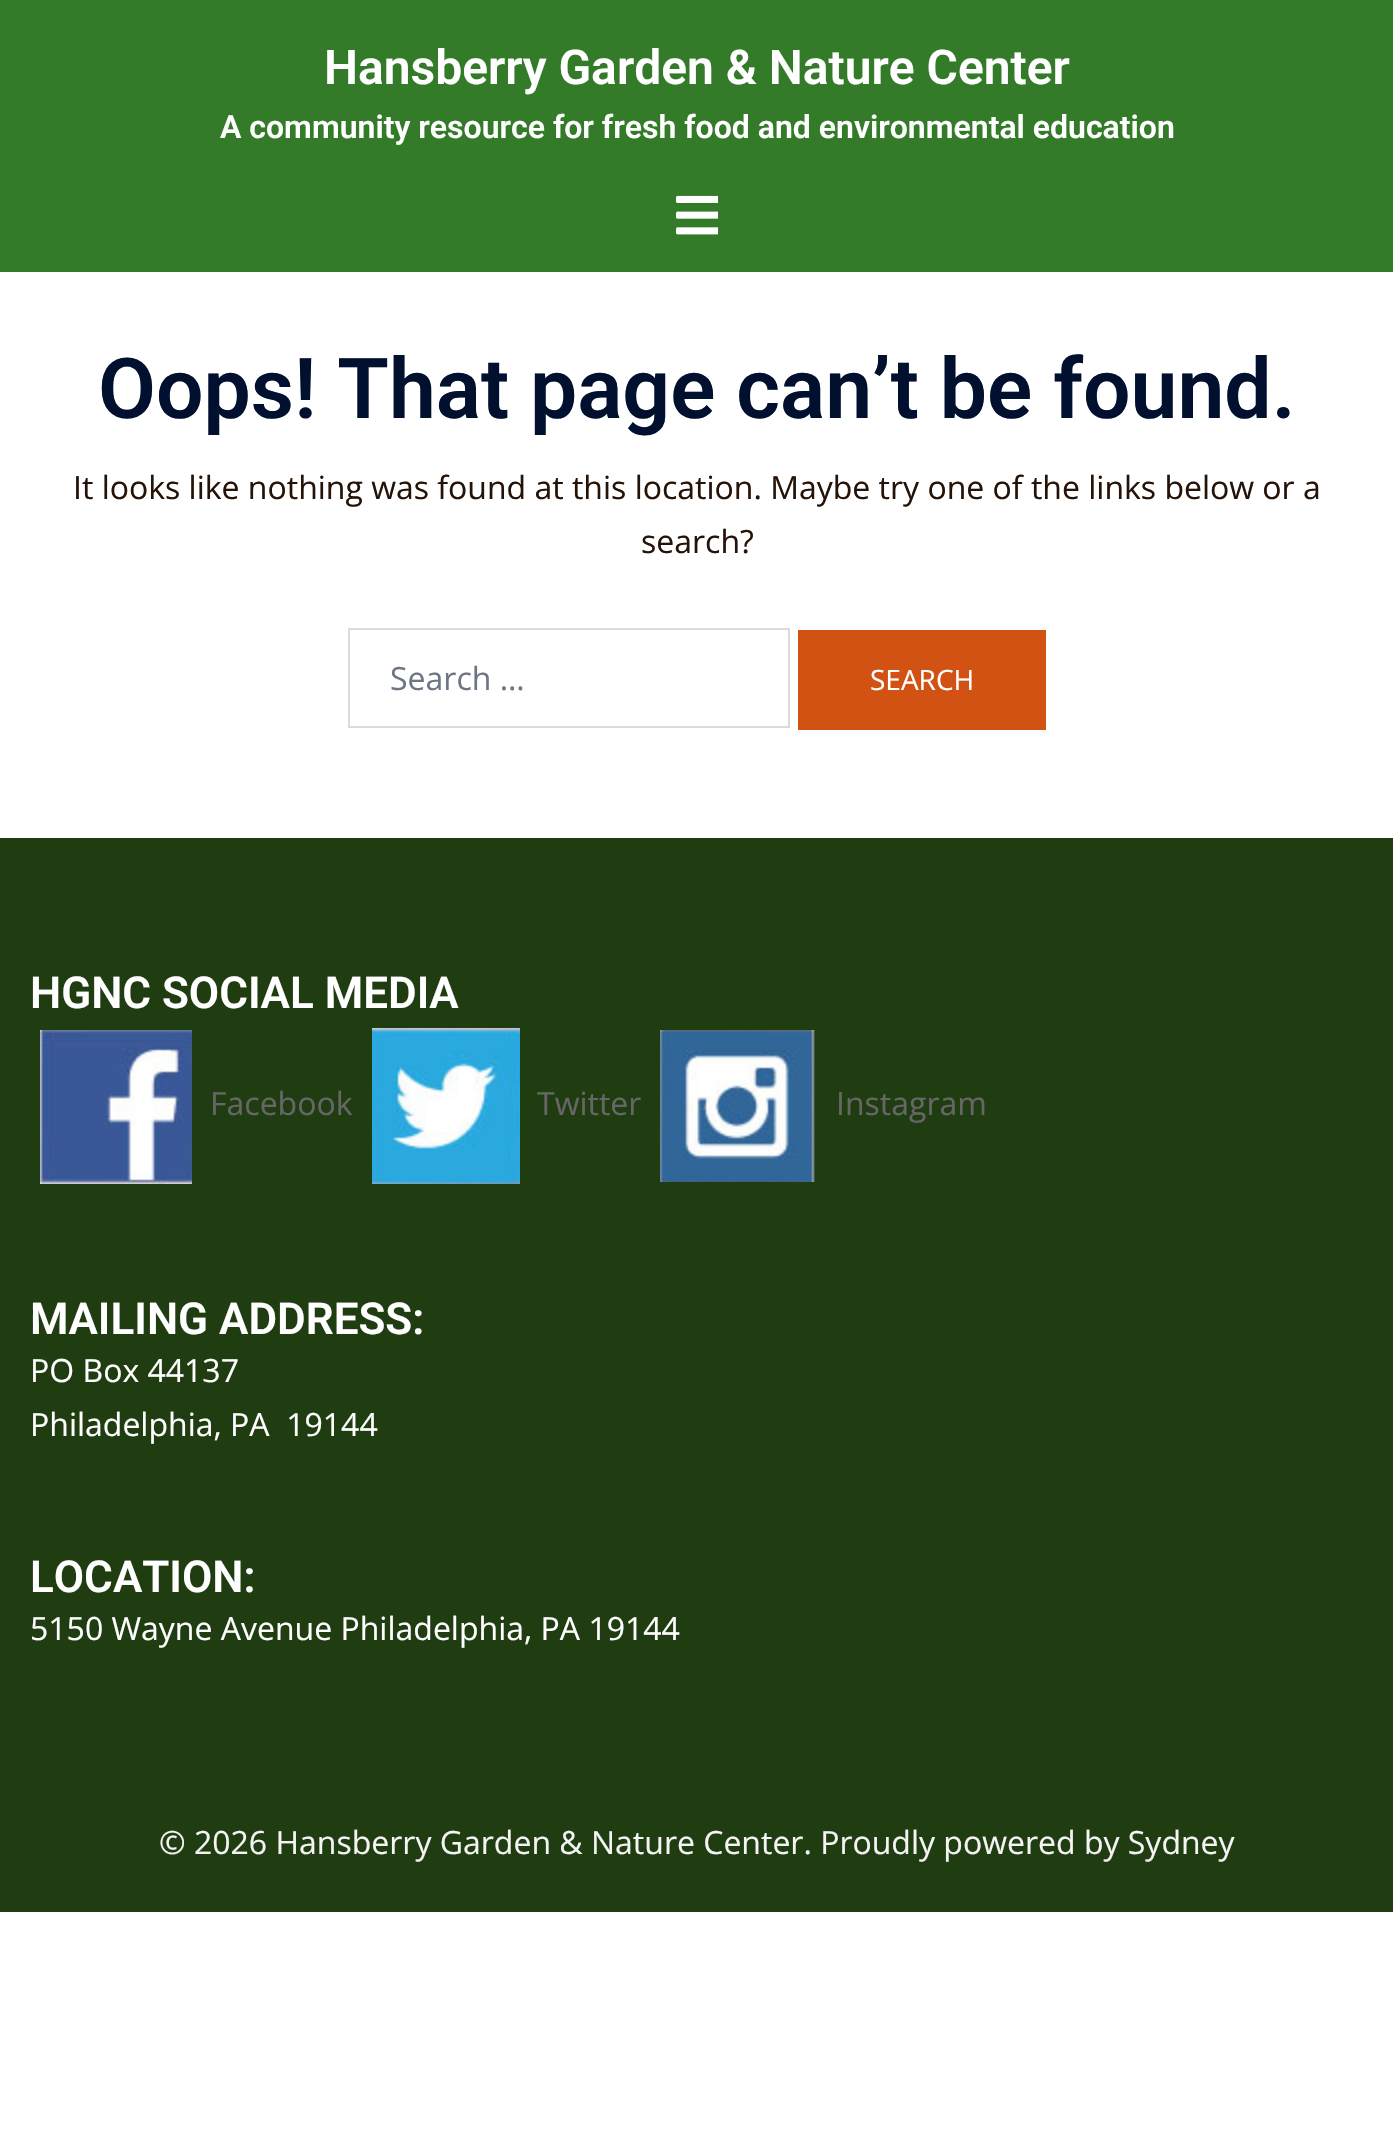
static SkFont makeFont(const char* family, int weight, float size, bool italic = false) {
  SkFontStyle style(weight, SkFontStyle::kNormal_Width,
    italic ? SkFontStyle::kItalic_Slant : SkFontStyle::kUpright_Slant);
  SkFont result(fontMgr->matchFamilyStyle(family, style), size);
  result.setSubpixel(true);
  return result;
}

static void text(SkCanvas* c, const char* s, float x, float y, const SkFont& font, SkColor color) {
  SkPaint ink(SkColor4f::FromColor(color));
  ink.setAntiAlias(true);
  c->drawString(s, x, y, font, ink);
}

static void box(SkCanvas* c, float l, float t, float r, float b, SkColor color) {
  SkPaint ink(SkColor4f::FromColor(color));
  ink.setAntiAlias(true);
  c->drawRect(SkRect::MakeLTRB(l, t, r, b), ink);
}

static void picture(SkCanvas* c, const char* path, float l, float t, float r, float b) {
  auto image = SkImages::DeferredFromEncodedData(SkData::MakeFromFileName(path));
  c->drawImageRect(image, SkRect::MakeLTRB(l, t, r, b), SkSamplingOptions());
}

void draw(SkCanvas* c) {
  SkPaint paint;
  paint.setAntiAlias(true);
  c->clear(0xffffffff);
  box(c, 0, 0, 1393, 272, 0xff337a29);
  SkFont face1 = makeFont("Roboto", 600, 48);
  text(c, "Hansberry Garden & Nature Center", 324, 84, face1, 0xffffffff);
  SkFont face2 = makeFont("Roboto", 600, 32);
  text(c, "A community resource for fresh food and environmental education", 220, 138, face2, 0xffffffff);
  picture(c, "img_01.png", 676, 195, 718, 235);
  SkFont face3 = makeFont("Roboto", 600, 84);
  text(c, "Oops! That page can’t be found.", 98, 418, face3, 0xff00102e);
  SkFont face4 = makeFont("Open Sans", 400, 32);
  text(c, "It looks like nothing was found at this location. Maybe try one of the links below or a", 73, 499, face4, 0xff261308);
  text(c, "search?", 641, 553, face4, 0xff261308);
  paint.setStyle(SkPaint::kStroke_Style);
  paint.setStrokeWidth(2);
  paint.setColor(0xffdbdbdb);
  c->drawRect(SkRect::MakeLTRB(349, 629, 789, 727), paint);
  text(c, "Search …", 390, 690, face4, 0xff6d7685);
  box(c, 798, 630, 1046, 730, 0xffd15212);
  SkFont face5 = makeFont("Open Sans", 400, 28);
  text(c, "SEARCH", 870, 690, face5, 0xffffffff);
  box(c, 0, 838, 1393, 1912, 0xff203d12);
  SkFont face6 = makeFont("Roboto", 600, 44);
  text(c, "HGNC SOCIAL MEDIA", 30, 1008, face6, 0xffffffff);
  picture(c, "img_02.png", 40, 1030, 192, 1184);
  text(c, "Facebook", 210, 1115, face4, 0xff666666);
  picture(c, "img_03.png", 372, 1028, 520, 1184);
  text(c, "Twitter", 537, 1115, face4, 0xff666666);
  picture(c, "img_04.png", 660, 1030, 815, 1182);
  text(c, "Instagram", 836, 1115, face4, 0xff666666);
  text(c, "MAILING ADDRESS:", 30, 1334, face6, 0xffffffff);
  text(c, "PO Box 44137", 30, 1382, face4, 0xffffffff);
  text(c, "Philadelphia, PA  19144", 30, 1436, face4, 0xffffffff);
  text(c, "LOCATION:", 30, 1592, face6, 0xffffffff);
  text(c, "5150 Wayne Avenue Philadelphia, PA 19144", 30, 1640, face4, 0xffffffff);
  text(c, "© 2026 Hansberry Garden & Nature Center. Proudly powered by Sydney", 159, 1854, face4, 0xfff4f4f4);
}
